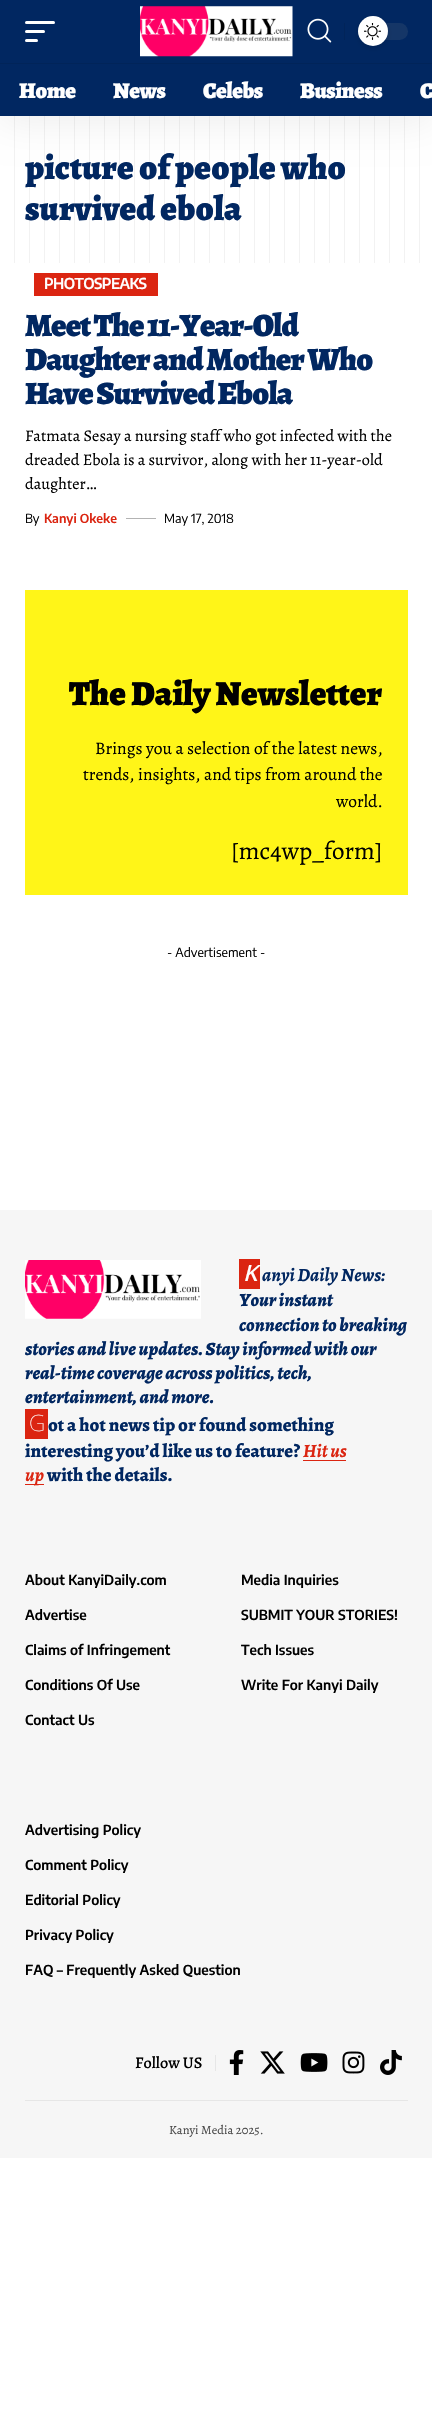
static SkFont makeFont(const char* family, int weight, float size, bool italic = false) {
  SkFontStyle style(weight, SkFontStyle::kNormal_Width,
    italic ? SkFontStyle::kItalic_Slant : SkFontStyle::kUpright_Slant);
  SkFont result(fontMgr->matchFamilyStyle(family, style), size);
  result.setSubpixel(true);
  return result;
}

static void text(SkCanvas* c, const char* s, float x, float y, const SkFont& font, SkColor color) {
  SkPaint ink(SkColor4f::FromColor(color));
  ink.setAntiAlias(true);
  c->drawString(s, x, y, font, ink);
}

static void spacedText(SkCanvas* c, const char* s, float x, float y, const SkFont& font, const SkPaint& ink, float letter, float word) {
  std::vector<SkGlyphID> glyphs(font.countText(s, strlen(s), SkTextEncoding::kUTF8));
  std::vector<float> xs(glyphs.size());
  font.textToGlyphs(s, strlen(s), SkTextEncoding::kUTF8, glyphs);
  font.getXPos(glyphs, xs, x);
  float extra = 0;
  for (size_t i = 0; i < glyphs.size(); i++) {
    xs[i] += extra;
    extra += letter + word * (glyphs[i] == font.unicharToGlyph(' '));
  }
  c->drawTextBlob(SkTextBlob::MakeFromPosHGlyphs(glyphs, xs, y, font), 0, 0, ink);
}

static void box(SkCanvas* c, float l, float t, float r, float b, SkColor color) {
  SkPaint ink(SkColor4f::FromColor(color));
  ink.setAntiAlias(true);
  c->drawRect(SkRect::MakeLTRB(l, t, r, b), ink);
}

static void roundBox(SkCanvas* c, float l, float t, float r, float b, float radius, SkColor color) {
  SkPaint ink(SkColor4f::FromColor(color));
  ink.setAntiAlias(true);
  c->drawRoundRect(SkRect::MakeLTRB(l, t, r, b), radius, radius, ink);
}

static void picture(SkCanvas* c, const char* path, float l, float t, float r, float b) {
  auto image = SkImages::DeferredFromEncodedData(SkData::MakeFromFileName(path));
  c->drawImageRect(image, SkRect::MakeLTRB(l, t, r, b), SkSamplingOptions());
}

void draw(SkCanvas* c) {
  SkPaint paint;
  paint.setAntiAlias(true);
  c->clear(0xffffffff);
  SkFont face1 = makeFont("Alegreya", 900, 35);
  text(c, "picture of people who", 25, 179, face1, 0xff012761);
  text(c, "survived ebola", 25, 220, face1, 0xff012761);
  picture(c, "img_04.png", 14, 116, 420, 263);
  paint.setColor(0x12000000);
  paint.setMaskFilter(SkMaskFilter::MakeBlur(kNormal_SkBlurStyle, 19));
  c->drawRect(SkRect::MakeLTRB(0, 5, 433, 121), paint);
  paint.setMaskFilter(nullptr);
  box(c, 0, 0, 432, 116, 0xff012761);
  roundBox(c, 25, 21, 55, 24, 1.5f, 0xffffffff);
  roundBox(c, 25, 30, 45, 33, 1.5f, 0xffffffff);
  roundBox(c, 25, 39, 38, 42, 1.5f, 0xffffffff);
  picture(c, "img_01.png", 140, 6, 293, 57);
  picture(c, "img_02.png", 307, 18, 332, 43);
  box(c, 344, 23, 345, 40, 0xff012459);
  roundBox(c, 358, 23, 408, 40, 8.5f, 0xff153667);
  paint.setColor(0x1f000000);
  paint.setMaskFilter(SkMaskFilter::MakeBlur(kNormal_SkBlurStyle, 2.5f));
  c->drawRoundRect(SkRect::MakeLTRB(358, 18, 388, 48), 15, 15, paint);
  paint.setMaskFilter(nullptr);
  paint.setColor(0xffffffff);
  c->drawCircle(373, 31, 15, paint);
  picture(c, "img_03.png", 364, 23, 381, 40);
  box(c, 0, 63, 432, 64, 0xff012459);
  SkFont face2 = makeFont("Alegreya", 900, 22.5f);
  spacedText(c, "Home", 19, 98, face2, paint, -0.5f, 0);
  spacedText(c, "News", 113, 98, face2, paint, -0.5f, 0);
  spacedText(c, "Celebs", 203, 98, face2, paint, -0.5f, 0);
  spacedText(c, "Business", 300, 98, face2, paint, -0.5f, 0);
  spacedText(c, "C", 420, 98, face2, paint, -0.5f, 0);
  box(c, 34, 273, 158, 296, 0xffdb2511);
  SkFont face3 = makeFont("Encode Sans Condensed", 600, 15);
  spacedText(c, "PHOTOSPEAKS", 44, 289, face3, paint, -0.6f, 0);
  SkFont face4 = makeFont("Alegreya", 900, 32.5f);
  paint.setColor(0xff012761);
  spacedText(c, "Meet The 11-Year-Old", 25, 336, face4, paint, -1, 0);
  spacedText(c, "Daughter and Mother Who", 25, 370, face4, paint, -1, 0);
  spacedText(c, "Have Survived Ebola", 25, 404, face4, paint, -1, 0);
  SkFont face5 = makeFont("Alegreya", 400, 16.25f);
  text(c, "Fatmata Sesay a nursing staff who got infected with the", 25, 441, face5, 0xff000000);
  text(c, "dreaded Ebola is a survivor, along with her 11-year-old", 25, 465, face5, 0xff000000);
  text(c, "daughter…", 25, 489, face5, 0xff000000);
  SkFont face6 = makeFont("Encode Sans Condensed", 400, 12.5f);
  text(c, "By", 25, 523, face6, 0xff000000);
  SkFont face7 = makeFont("Encode Sans Condensed", 600, 12.5f);
  text(c, "Kanyi Okeke", 44, 523, face7, 0xffdb2511);
  box(c, 126, 518, 156, 519, 0xffb3b3b3);
  text(c, "May 17, 2018", 164, 523, face6, 0xff000000);
  box(c, 25, 590, 408, 895, 0xfffff518);
  text(c, "The Daily Newsletter", 69, 705, face1, 0xff000000);
  SkFont face8 = makeFont("Alegreya", 400, 17.5f);
  text(c, "Brings you a selection of the latest news,", 95, 754, face8, 0xff000000);
  text(c, "trends, insights, and tips from around the", 83, 780, face8, 0xff000000);
  text(c, "world.", 336, 807, face8, 0xff000000);
  SkFont face9 = makeFont("Alegreya", 400, 25);
  text(c, "[mc4wp_form]", 231, 859, face9, 0xff000000);
  text(c, "- Advertisement -", 167, 957, face6, 0xff000000);
  box(c, 0, 1210, 432, 2158, 0xfff6f6f6);
  picture(c, "img_05.png", 25, 1260, 201, 1319);
  box(c, 239, 1259, 260, 1289, 0xffdb2511);
  SkFont face10 = makeFont("Noto Sans", 500, 22.5f, true);
  text(c, "K", 243, 1281, face10, 0xffffffff);
  SkFont face11 = makeFont("Alegreya", 700, 18.75f, true);
  text(c, "anyi Daily News:", 262, 1281, face11, 0xff012761);
  SkFont face12 = makeFont("Alegreya", 800, 18.75f, true);
  text(c, "Your instant", 239, 1306, face12, 0xff012761);
  text(c, "connection to breaking", 239, 1331, face12, 0xff012761);
  text(c, "stories and live updates. Stay informed with our", 25, 1355, face12, 0xff012761);
  text(c, "real-time coverage across politics, tech,", 25, 1379, face12, 0xff012761);
  text(c, "entertainment, and more.", 25, 1403, face12, 0xff012761);
  box(c, 25, 1409, 48, 1439, 0xffdb2511);
  SkFont face13 = makeFont("Noto Sans", 100, 22.5f);
  text(c, "G", 29, 1431, face13, 0xffffffff);
  SkFont face14 = makeFont("Alegreya", 800, 18.75f);
  text(c, "ot a hot news tip or found something", 48, 1431, face14, 0xff012761);
  text(c, "interesting you’d like us to feature?", 25, 1457, face14, 0xff012761);
  text(c, "Hit us", 303, 1457, face11, 0xffdb2511);
  box(c, 303, 1460, 346, 1461, 0xffdb2511);
  box(c, 25, 1484, 44, 1485, 0xffdb2511);
  text(c, "up", 25, 1481, face11, 0xffdb2511);
  text(c, "with the details.", 47, 1481, face14, 0xff012761);
  SkFont face15 = makeFont("Encode Sans Condensed", 600, 13.75f);
  text(c, "About KanyiDaily.com", 25, 1585, face15, 0xff000000);
  text(c, "Advertise", 25, 1620, face15, 0xff000000);
  text(c, "Claims of Infringement", 25, 1655, face15, 0xff000000);
  text(c, "Conditions Of Use", 25, 1690, face15, 0xff000000);
  text(c, "Contact Us", 25, 1725, face15, 0xff000000);
  text(c, "Media Inquiries", 241, 1585, face15, 0xff000000);
  text(c, "SUBMIT YOUR STORIES!", 241, 1620, face15, 0xff000000);
  text(c, "Tech Issues", 241, 1655, face15, 0xff000000);
  text(c, "Write For Kanyi Daily", 241, 1690, face15, 0xff000000);
  text(c, "Advertising Policy", 25, 1835, face15, 0xff000000);
  text(c, "Comment Policy", 25, 1870, face15, 0xff000000);
  text(c, "Editorial Policy", 25, 1905, face15, 0xff000000);
  text(c, "Privacy Policy", 25, 1940, face15, 0xff000000);
  text(c, "FAQ – Frequently Asked Question", 25, 1975, face15, 0xff000000);
  box(c, 215, 2055, 216, 2071, 0xffe6e6e6);
  SkFont face16 = makeFont("Alegreya", 500, 16.25f);
  text(c, "Follow US", 135, 2068, face16, 0xff000000);
  picture(c, "img_06.png", 229, 2050, 244, 2075);
  picture(c, "img_07.png", 260, 2051, 285, 2074);
  picture(c, "img_08.png", 300, 2053, 328, 2072);
  picture(c, "img_09.png", 342, 2051, 365, 2074);
  picture(c, "img_10.png", 380, 2050, 402, 2075);
  box(c, 25, 2100, 408, 2101, 0xffe6e6e6);
  SkFont face17 = makeFont("Alegreya", 400, 12.5f);
  text(c, "Kanyi Media 2025.", 169, 2134, face17, 0xff4a4a4a);
}
